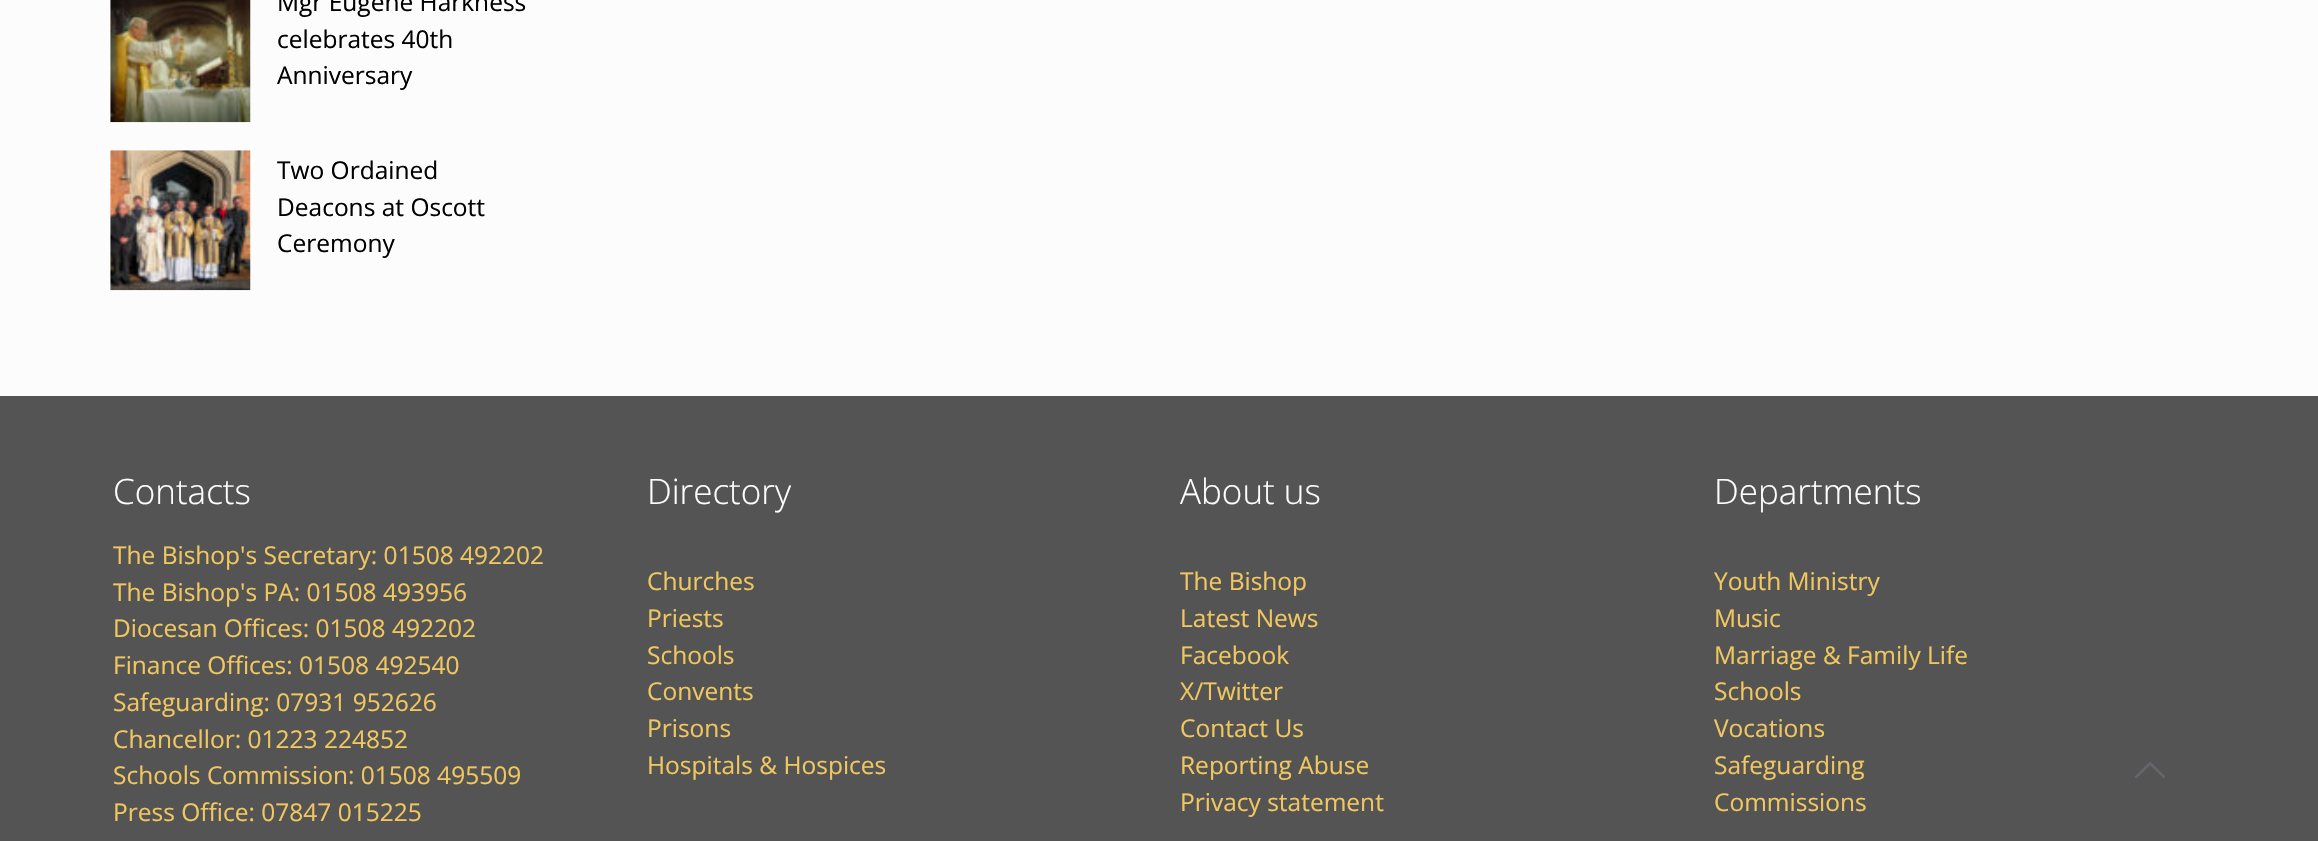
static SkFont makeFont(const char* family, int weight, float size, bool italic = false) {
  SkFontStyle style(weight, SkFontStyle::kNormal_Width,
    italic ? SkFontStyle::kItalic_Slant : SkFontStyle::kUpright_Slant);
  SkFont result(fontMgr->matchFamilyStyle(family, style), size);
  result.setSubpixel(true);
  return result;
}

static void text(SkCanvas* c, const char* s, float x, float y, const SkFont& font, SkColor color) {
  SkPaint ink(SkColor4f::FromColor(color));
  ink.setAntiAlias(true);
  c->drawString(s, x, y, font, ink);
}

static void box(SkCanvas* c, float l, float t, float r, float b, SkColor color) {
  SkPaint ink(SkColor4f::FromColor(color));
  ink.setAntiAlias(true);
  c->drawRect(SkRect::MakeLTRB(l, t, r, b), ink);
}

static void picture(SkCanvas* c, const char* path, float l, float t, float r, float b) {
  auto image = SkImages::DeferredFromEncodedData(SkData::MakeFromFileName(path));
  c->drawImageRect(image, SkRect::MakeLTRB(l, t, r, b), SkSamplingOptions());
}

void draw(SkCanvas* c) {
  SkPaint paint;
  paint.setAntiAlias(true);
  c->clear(0xfffcfcfc);
  picture(c, "img_01.png", 110, 0, 251, 123);
  SkFont face1 = makeFont("Open Sans", 400, 24.5f);
  text(c, "Mgr Eugene Harkness", 277, 11, face1, 0xff000000);
  text(c, "celebrates 40th", 277, 48, face1, 0xff000000);
  text(c, "Anniversary", 277, 84, face1, 0xff000000);
  picture(c, "img_02.png", 110, 150, 251, 291);
  text(c, "Two Ordained", 277, 179, face1, 0xff000000);
  text(c, "Deacons at Oscott", 277, 216, face1, 0xff000000);
  text(c, "Ceremony", 277, 252, face1, 0xff000000);
  box(c, 0, 396, 2318, 841, 0xff545454);
  SkFont face2 = makeFont("Open Sans", 300, 35);
  text(c, "Contacts", 113, 504, face2, 0xffffffff);
  text(c, "The Bishop's Secretary: 01508 492202", 113, 564, face1, 0xfff0c760);
  text(c, "The Bishop's PA: 01508 493956", 113, 601, face1, 0xfff0c760);
  text(c, "Diocesan Offices: 01508 492202", 113, 637, face1, 0xfff0c760);
  text(c, "Finance Offices: 01508 492540", 113, 674, face1, 0xfff0c760);
  text(c, "Safeguarding: 07931 952626", 113, 711, face1, 0xfff0c760);
  text(c, "Chancellor: 01223 224852", 113, 748, face1, 0xfff0c760);
  text(c, "Schools Commission: 01508 495509", 113, 784, face1, 0xfff0c760);
  text(c, "Press Office: 07847 015225", 113, 821, face1, 0xfff0c760);
  text(c, "Directory", 647, 504, face2, 0xffffffff);
  text(c, "Churches", 647, 590, face1, 0xfff0c760);
  text(c, "Priests", 647, 627, face1, 0xfff0c760);
  text(c, "Schools", 647, 664, face1, 0xfff0c760);
  text(c, "Convents", 647, 700, face1, 0xfff0c760);
  text(c, "Prisons", 647, 737, face1, 0xfff0c760);
  text(c, "Hospitals & Hospices", 647, 774, face1, 0xfff0c760);
  text(c, "About us", 1180, 504, face2, 0xffffffff);
  text(c, "The Bishop", 1180, 590, face1, 0xfff0c760);
  text(c, "Latest News", 1180, 627, face1, 0xfff0c760);
  text(c, "Facebook", 1180, 664, face1, 0xfff0c760);
  text(c, "X/Twitter", 1180, 700, face1, 0xfff0c760);
  text(c, "Contact Us", 1180, 737, face1, 0xfff0c760);
  text(c, "Reporting Abuse", 1180, 774, face1, 0xfff0c760);
  text(c, "Privacy statement", 1180, 811, face1, 0xfff0c760);
  text(c, "Departments", 1714, 504, face2, 0xffffffff);
  text(c, "Youth Ministry", 1714, 590, face1, 0xfff0c760);
  text(c, "Music", 1714, 627, face1, 0xfff0c760);
  text(c, "Marriage & Family Life", 1714, 664, face1, 0xfff0c760);
  text(c, "Schools", 1714, 700, face1, 0xfff0c760);
  text(c, "Vocations", 1714, 737, face1, 0xfff0c760);
  text(c, "Safeguarding", 1714, 774, face1, 0xfff0c760);
  text(c, "Commissions", 1714, 811, face1, 0xfff0c760);
  picture(c, "img_03.png", 2135, 762, 2165, 778);
}
